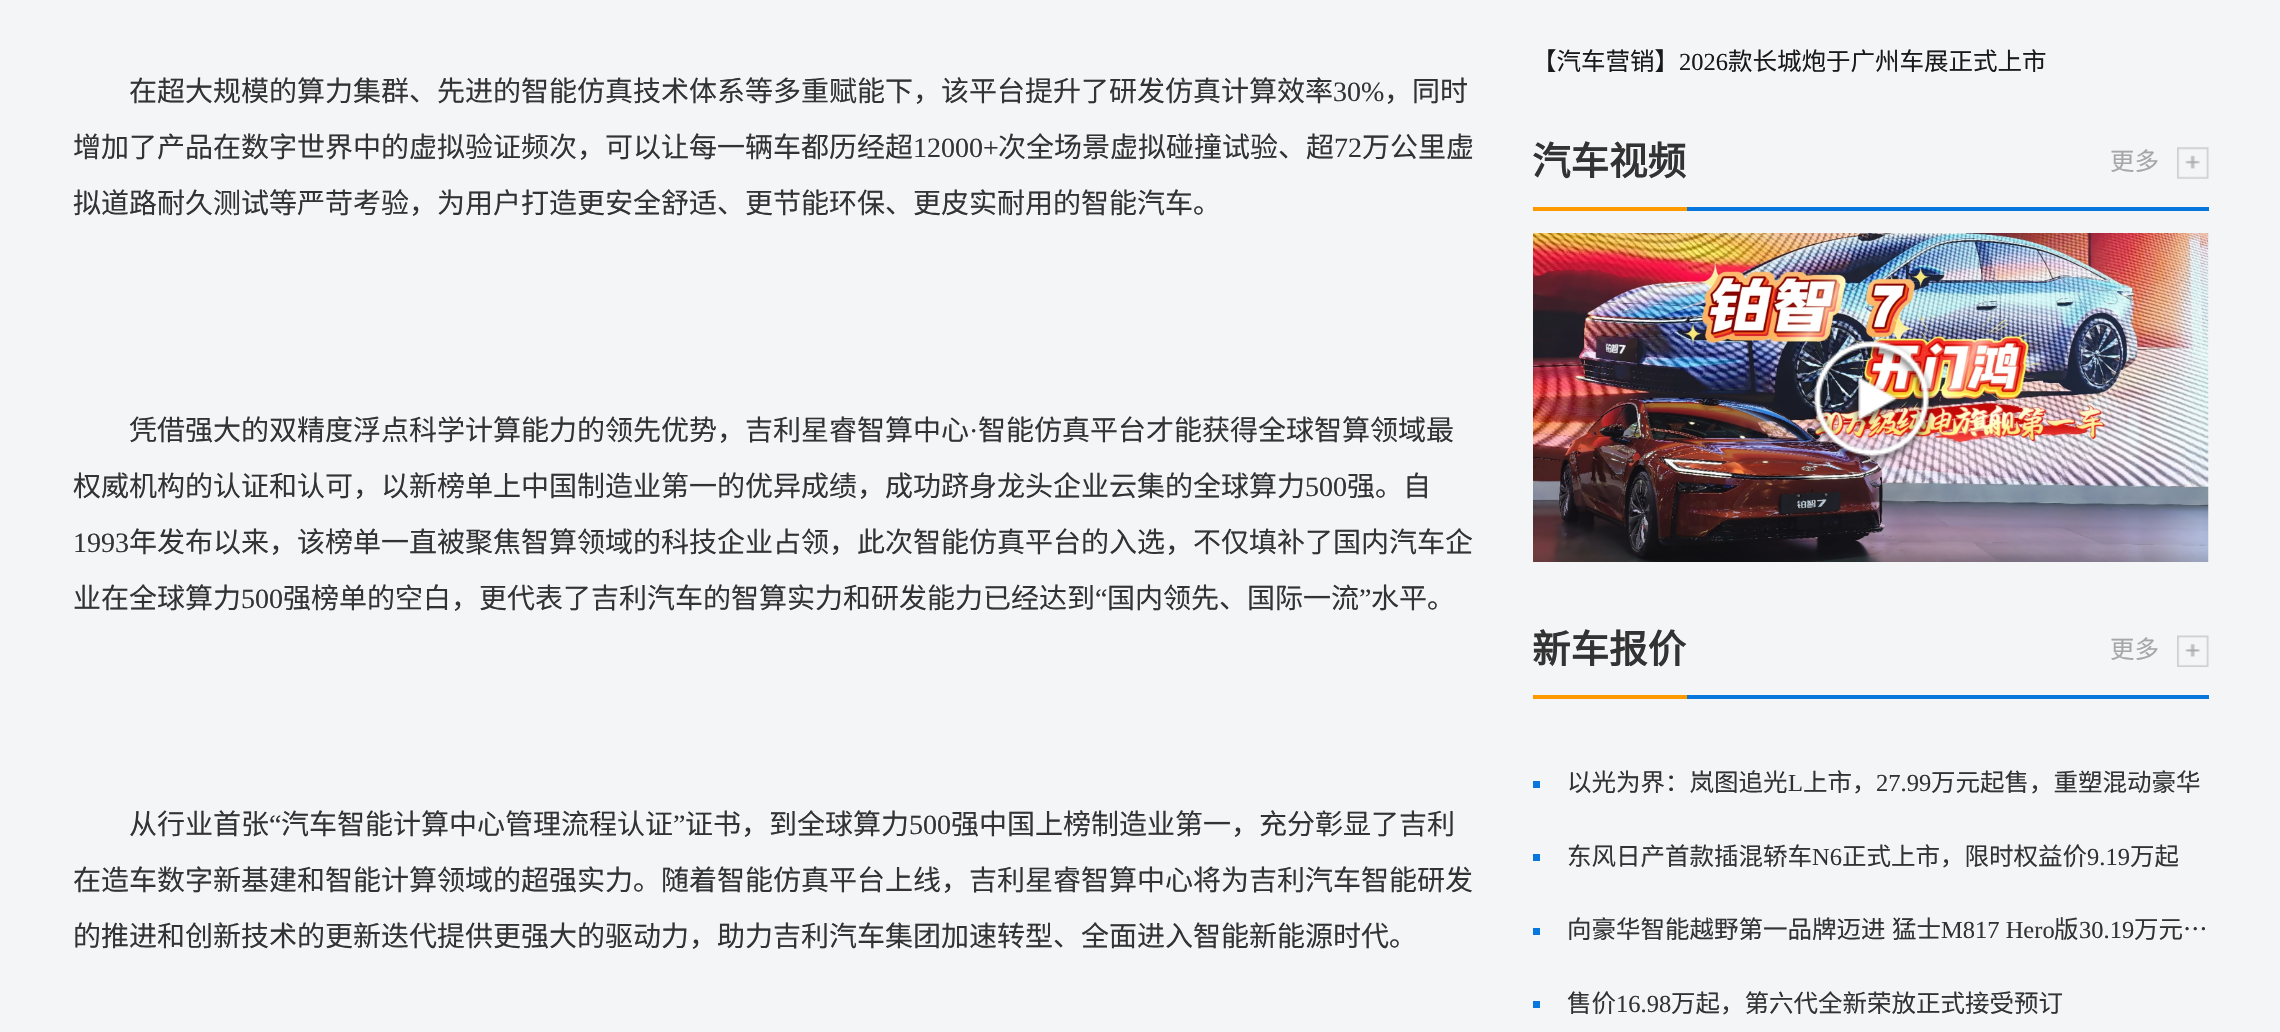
static SkFont makeFont(const char* family, int weight, float size, bool italic = false) {
  SkFontStyle style(weight, SkFontStyle::kNormal_Width,
    italic ? SkFontStyle::kItalic_Slant : SkFontStyle::kUpright_Slant);
  SkFont result(fontMgr->matchFamilyStyle(family, style), size);
  result.setSubpixel(true);
  return result;
}

static void text(SkCanvas* c, const char* s, float x, float y, const SkFont& font, SkColor color) {
  SkPaint ink(SkColor4f::FromColor(color));
  ink.setAntiAlias(true);
  c->drawString(s, x, y, font, ink);
}

static void box(SkCanvas* c, float l, float t, float r, float b, SkColor color) {
  SkPaint ink(SkColor4f::FromColor(color));
  ink.setAntiAlias(true);
  c->drawRect(SkRect::MakeLTRB(l, t, r, b), ink);
}

static void picture(SkCanvas* c, const char* path, float l, float t, float r, float b) {
  auto image = SkImages::DeferredFromEncodedData(SkData::MakeFromFileName(path));
  c->drawImageRect(image, SkRect::MakeLTRB(l, t, r, b), SkSamplingOptions());
}

void draw(SkCanvas* c) {
  SkPaint paint;
  paint.setAntiAlias(true);
  c->clear(0xfff4f5f7);
  SkFont face1 = makeFont("Noto Sans CJK SC", 400, 28);
  text(c, "在超大规模的算力集群、先进的智能仿真技术体系等多重赋能下，该平台提升了研发仿真计算效率", 129, 101, face1, 0xff333333);
  SkFont face2 = makeFont("Liberation Serif", 400, 28);
  text(c, "30%", 1333, 101, face2, 0xff333333);
  text(c, "，同时", 1384, 101, face1, 0xff333333);
  text(c, "增加了产品在数字世界中的虚拟验证频次，可以让每一辆车都历经超", 73, 157, face1, 0xff333333);
  text(c, "12000+", 913, 157, face2, 0xff333333);
  text(c, "次全场景虚拟碰撞试验、超", 998, 157, face1, 0xff333333);
  text(c, "72", 1334, 157, face2, 0xff333333);
  text(c, "万公里虚", 1362, 157, face1, 0xff333333);
  text(c, "拟道路耐久测试等严苛考验，为用户打造更安全舒适、更节能环保、更皮实耐用的智能汽车。", 73, 213, face1, 0xff333333);
  text(c, "凭借强大的双精度浮点科学计算能力的领先优势，吉利星睿智算中心", 129, 440, face1, 0xff333333);
  text(c, "·", 969, 440, face2, 0xff333333);
  text(c, "智能仿真平台才能获得全球智算领域最", 978, 440, face1, 0xff333333);
  text(c, "权威机构的认证和认可，以新榜单上中国制造业第一的优异成绩，成功跻身龙头企业云集的全球算力", 73, 496, face1, 0xff333333);
  text(c, "500", 1305, 496, face2, 0xff333333);
  text(c, "强。自", 1347, 496, face1, 0xff333333);
  text(c, "1993", 73, 552, face2, 0xff333333);
  text(c, "年发布以来，该榜单一直被聚焦智算领域的科技企业占领，此次智能仿真平台的入选，不仅填补了国内汽车企", 129, 552, face1, 0xff333333);
  text(c, "业在全球算力", 73, 608, face1, 0xff333333);
  text(c, "500", 241, 608, face2, 0xff333333);
  text(c, "强榜单的空白，更代表了吉利汽车的智算实力和研发能力已经达到", 283, 608, face1, 0xff333333);
  text(c, "“", 1095, 608, face2, 0xff333333);
  text(c, "国内领先、国际一流", 1107, 608, face1, 0xff333333);
  text(c, "”", 1359, 608, face2, 0xff333333);
  text(c, "水平。", 1371, 608, face1, 0xff333333);
  text(c, "从行业首张", 129, 834, face1, 0xff333333);
  text(c, "“", 269, 834, face2, 0xff333333);
  text(c, "汽车智能计算中心管理流程认证", 281, 834, face1, 0xff333333);
  text(c, "”", 673, 834, face2, 0xff333333);
  text(c, "证书，到全球算力", 685, 834, face1, 0xff333333);
  text(c, "500", 909, 834, face2, 0xff333333);
  text(c, "强中国上榜制造业第一，充分彰显了吉利", 951, 834, face1, 0xff333333);
  text(c, "在造车数字新基建和智能计算领域的超强实力。随着智能仿真平台上线，吉利星睿智算中心将为吉利汽车智能研发", 73, 890, face1, 0xff333333);
  text(c, "的推进和创新技术的更新迭代提供更强大的驱动力，助力吉利汽车集团加速转型、全面进入智能新能源时代。", 73, 946, face1, 0xff333333);
  SkFont face3 = makeFont("Noto Sans CJK SC", 400, 24.5f);
  text(c, "【汽车营销】", 1532, 70, face3, 0xff1a1a1a);
  SkFont face4 = makeFont("Liberation Serif", 400, 24.5f);
  text(c, "2026", 1679, 70, face4, 0xff1a1a1a);
  text(c, "款长城炮于广州车展正式上市", 1728, 70, face3, 0xff1a1a1a);
  box(c, 1687, 207, 2209, 211, 0xff0777dd);
  SkFont face5 = makeFont("Noto Sans CJK SC", 700, 38.5f);
  text(c, "汽车视频", 1532, 175, face5, 0xff333333);
  box(c, 1533, 207, 1687, 211, 0xffff9900);
  text(c, "更多", 2110, 170, face3, 0xffa7a7a7);
  picture(c, "img_01.png", 2177, 147, 2209, 179);
  picture(c, "img_02.png", 1533, 233, 2209, 562);
  picture(c, "img_03.png", 1809, 339, 1935, 465);
  box(c, 1687, 695, 2209, 699, 0xff0777dd);
  text(c, "新车报价", 1532, 663, face5, 0xff333333);
  box(c, 1533, 695, 1687, 699, 0xffff9900);
  text(c, "更多", 2110, 658, face3, 0xffa7a7a7);
  picture(c, "img_04.png", 2177, 635, 2209, 667);
  box(c, 1533, 781, 1540, 788, 0xff0777dd);
  text(c, "以光为界：岚图追光", 1567, 791, face3, 0xff333333);
  text(c, "L", 1788, 791, face4, 0xff333333);
  text(c, "上市，", 1803, 791, face3, 0xff333333);
  text(c, "27.99", 1876, 791, face4, 0xff333333);
  text(c, "万元起售，重塑混动豪华", 1931, 791, face3, 0xff333333);
  box(c, 1533, 854, 1540, 861, 0xff0777dd);
  text(c, "东风日产首款插混轿车", 1567, 865, face3, 0xff333333);
  text(c, "N6", 1812, 865, face4, 0xff333333);
  text(c, "正式上市，限时权益价", 1842, 865, face3, 0xff333333);
  text(c, "9.19", 2087, 865, face4, 0xff333333);
  text(c, "万起", 2130, 865, face3, 0xff333333);
  box(c, 1533, 928, 1540, 935, 0xff0777dd);
  text(c, "向豪华智能越野第一品牌迈进", 1567, 938, face3, 0xff333333);
  text(c, "猛士", 1892, 938, face3, 0xff333333);
  text(c, "M817 Hero", 1941, 938, face4, 0xff333333);
  text(c, "版", 2054, 938, face3, 0xff333333);
  text(c, "30.19", 2079, 938, face4, 0xff333333);
  text(c, "万元…", 2134, 938, face3, 0xff333333);
  box(c, 1533, 1001, 1540, 1008, 0xff0777dd);
  text(c, "售价", 1567, 1012, face3, 0xff333333);
  text(c, "16.98", 1616, 1012, face4, 0xff333333);
  text(c, "万起，第六代全新荣放正式接受预订", 1671, 1012, face3, 0xff333333);
}
